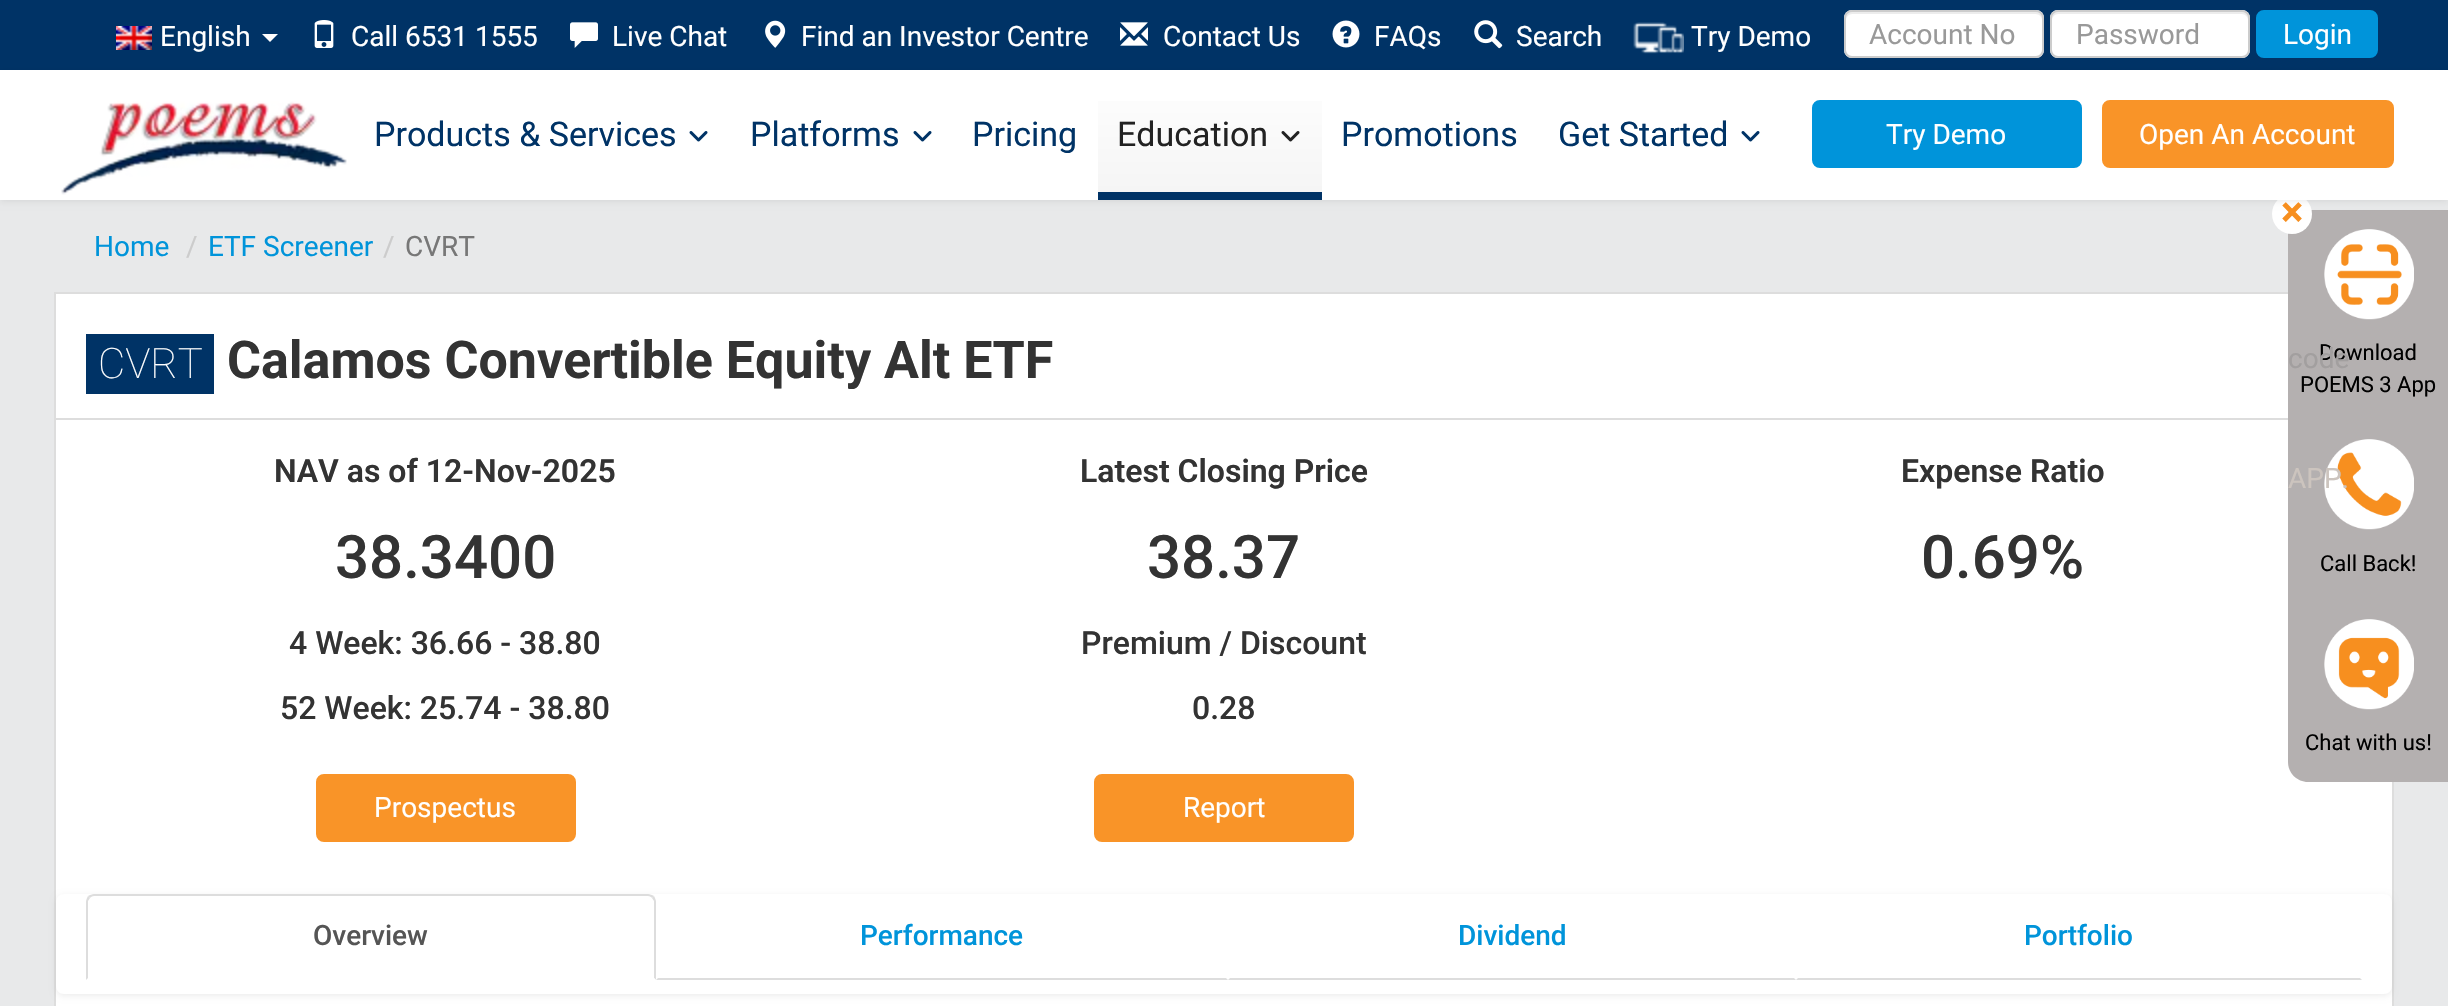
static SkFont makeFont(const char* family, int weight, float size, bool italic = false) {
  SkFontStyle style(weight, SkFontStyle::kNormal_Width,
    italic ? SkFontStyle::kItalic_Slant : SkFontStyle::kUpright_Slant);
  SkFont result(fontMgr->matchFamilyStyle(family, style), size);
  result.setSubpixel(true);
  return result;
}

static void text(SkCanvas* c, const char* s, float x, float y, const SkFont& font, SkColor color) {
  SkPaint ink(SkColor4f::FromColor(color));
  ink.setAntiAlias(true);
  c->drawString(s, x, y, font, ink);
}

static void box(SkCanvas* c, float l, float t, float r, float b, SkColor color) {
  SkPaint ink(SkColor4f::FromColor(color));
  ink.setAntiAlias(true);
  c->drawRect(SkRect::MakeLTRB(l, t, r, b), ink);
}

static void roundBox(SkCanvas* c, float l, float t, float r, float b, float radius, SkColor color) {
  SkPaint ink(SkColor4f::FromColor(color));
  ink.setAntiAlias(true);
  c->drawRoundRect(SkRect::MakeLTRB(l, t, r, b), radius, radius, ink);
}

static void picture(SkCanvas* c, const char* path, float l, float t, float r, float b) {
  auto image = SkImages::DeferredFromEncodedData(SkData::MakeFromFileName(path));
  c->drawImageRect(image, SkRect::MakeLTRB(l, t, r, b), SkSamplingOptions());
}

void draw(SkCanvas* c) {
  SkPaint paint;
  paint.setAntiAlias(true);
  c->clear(0xffe8e9ea);
  box(c, 0, 0, 2448, 70, 0xff003366);
  picture(c, "img_01.png", 116, 26, 152, 50);
  SkFont face1 = makeFont("Roboto", 400, 28);
  text(c, "English", 160, 46, face1, 0xffffffff);
  paint.setColor(0xffffffff);
  c->drawPath(SkPathBuilder().moveTo(262, 34).lineTo(278, 34).lineTo(270, 42).close().detach(), paint);
  picture(c, "img_02.png", 314, 20, 334, 48);
  text(c, "Call 6531 1555", 351, 46, face1, 0xffffffff);
  picture(c, "img_03.png", 570, 22, 598, 48);
  text(c, "Live Chat", 612, 46, face1, 0xffffffff);
  picture(c, "img_04.png", 765, 20, 786, 48);
  text(c, "Find an Investor Centre", 801, 46, face1, 0xffffffff);
  picture(c, "img_05.png", 1120, 22, 1148, 46);
  text(c, "Contact Us", 1163, 46, face1, 0xffffffff);
  picture(c, "img_06.png", 1332, 20, 1360, 48);
  text(c, "FAQs", 1374, 46, face1, 0xffffffff);
  picture(c, "img_07.png", 1474, 20, 1503, 49);
  text(c, "Search", 1516, 46, face1, 0xffffffff);
  picture(c, "img_08.png", 1633, 22, 1684, 54);
  text(c, "Try Demo", 1691, 46, face1, 0xffffffff);
  roundBox(c, 1844, 10, 2044, 58, 8, 0xffffffff);
  paint.setColor(0xffececec);
  c->drawPath(SkPathBuilder().moveTo(1852, 14).lineTo(2036, 14).cubicTo(2039, 14, 2042, 17, 2042, 20).lineTo(2042, 18).cubicTo(2042, 15, 2039, 12, 2036, 12).lineTo(1852, 12).cubicTo(1849, 12, 1846, 15, 1846, 18).lineTo(1846, 20).cubicTo(1846, 17, 1849, 14, 1852, 14).close().detach(), paint);
  paint.setStyle(SkPaint::kStroke_Style);
  paint.setStrokeWidth(2);
  paint.setColor(0xffcccccc);
  c->drawRoundRect(SkRect::MakeLTRB(1845, 11, 2043, 57), 7, 7, paint);
  text(c, "Account No", 1869, 44, face1, 0xff999999);
  roundBox(c, 2050, 10, 2250, 58, 8, 0xffffffff);
  paint.setStyle(SkPaint::kFill_Style);
  paint.setColor(0xffececec);
  c->drawPath(SkPathBuilder().moveTo(2058, 14).lineTo(2242, 14).cubicTo(2245, 14, 2248, 17, 2248, 20).lineTo(2248, 18).cubicTo(2248, 15, 2245, 12, 2242, 12).lineTo(2058, 12).cubicTo(2055, 12, 2052, 15, 2052, 18).lineTo(2052, 20).cubicTo(2052, 17, 2055, 14, 2058, 14).close().detach(), paint);
  paint.setStyle(SkPaint::kStroke_Style);
  paint.setColor(0xffcccccc);
  c->drawRoundRect(SkRect::MakeLTRB(2051, 11, 2249, 57), 7, 7, paint);
  text(c, "Password", 2076, 44, face1, 0xff999999);
  paint.setStyle(SkPaint::kFill_Style);
  paint.setColor(0xff0094da);
  c->drawRoundRect(SkRect::MakeLTRB(2257, 11, 2377, 57), 7, 7, paint);
  paint.setStyle(SkPaint::kStroke_Style);
  c->drawRoundRect(SkRect::MakeLTRB(2257, 11, 2377, 57), 7, 7, paint);
  text(c, "Login", 2283, 44, face1, 0xffffffff);
  paint.setStyle(SkPaint::kFill_Style);
  paint.setColor(0xffffffff);
  c->drawRect(SkRect::MakeLTRB(55, 293, 2393, 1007), paint);
  paint.setStyle(SkPaint::kStroke_Style);
  paint.setColor(0xffdddddd);
  c->drawRect(SkRect::MakeLTRB(55, 293, 2393, 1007), paint);
  box(c, 2288, 210, 2448, 600, 0xffb4b0b0);
  paint.setStyle(SkPaint::kFill_Style);
  paint.setColor(0xffffffff);
  c->drawCircle(2292, 214, 20, paint);
  paint.setColor(0x12000000);
  paint.setMaskFilter(SkMaskFilter::MakeBlur(kNormal_SkBlurStyle, 3));
  c->drawRect(SkRect::MakeLTRB(0, 72, 2448, 202), paint);
  paint.setMaskFilter(nullptr);
  box(c, 0, 70, 2448, 200, 0xffffffff);
  picture(c, "img_09.png", 61, 101, 347, 195);
  SkFont face2 = makeFont("Roboto", 400, 34);
  text(c, "Products & Services", 374, 146, face2, 0xff003366);
  picture(c, "img_10.png", 689, 131, 708, 142);
  text(c, "Platforms", 750, 146, face2, 0xff003366);
  picture(c, "img_10.png", 913, 131, 932, 142);
  text(c, "Pricing", 972, 146, face2, 0xff003366);
  {
    const SkColor colors[] = {0xffffffff, 0xfff5f5f5};
    const float stops[] = {0, 1};
    const SkPoint ends[] = {{1210, 70}, {1210, 192}};
    paint.setShader(SkGradientShader::MakeLinear(ends, colors, stops, 2, SkTileMode::kClamp));
    paint.setAlpha(255);
  }
  c->drawRect(SkRect::MakeLTRB(1098, 101, 1322, 192), paint);
  box(c, 1098, 192, 1322, 200, 0xff003366);
  text(c, "Education", 1117, 146, face2, 0xff222222);
  picture(c, "img_11.png", 1281, 131, 1300, 142);
  text(c, "Promotions", 1341, 146, face2, 0xff003366);
  text(c, "Get Started", 1558, 146, face2, 0xff003366);
  picture(c, "img_10.png", 1741, 131, 1760, 142);
  paint.setShader(nullptr);
  paint.setColor(0xff0094da);
  c->drawRoundRect(SkRect::MakeLTRB(1813, 101, 2081, 167), 7, 7, paint);
  paint.setStyle(SkPaint::kStroke_Style);
  c->drawRoundRect(SkRect::MakeLTRB(1813, 101, 2081, 167), 7, 7, paint);
  text(c, "Try Demo", 1886, 144, face1, 0xffffffff);
  paint.setStyle(SkPaint::kFill_Style);
  paint.setColor(0xfff99428);
  c->drawRoundRect(SkRect::MakeLTRB(2103, 101, 2393, 167), 7, 7, paint);
  paint.setStyle(SkPaint::kStroke_Style);
  c->drawRoundRect(SkRect::MakeLTRB(2103, 101, 2393, 167), 7, 7, paint);
  text(c, "Open An Account", 2139, 144, face1, 0xffffffff);
  text(c, "Home", 94, 256, face1, 0xff0094da);
  text(c, "/", 186, 256, face1, 0xffcccccc);
  text(c, "ETF Screener", 208, 256, face1, 0xff0094da);
  text(c, "/", 383, 256, face1, 0xffcccccc);
  text(c, "CVRT", 405, 256, face1, 0xff777777);
  box(c, 56, 418, 2288, 420, 0xffdddddd);
  box(c, 86, 334, 214, 394, 0xff003366);
  SkFont face3 = makeFont("Roboto", 100, 42);
  text(c, "CVRT", 98, 378, face3, 0xffffffff);
  SkFont face4 = makeFont("Roboto", 700, 52);
  text(c, "Calamos Convertible Equity Alt ETF", 227, 378, face4, 0xff333333);
  SkFont face5 = makeFont("Roboto", 600, 32);
  text(c, "NAV as of 12-Nov-2025", 274, 482, face5, 0xff333333);
  SkFont face6 = makeFont("Roboto", 500, 60);
  text(c, "38.3400", 335, 578, face6, 0xff333333);
  SkFont face7 = makeFont("Roboto", 500, 32);
  text(c, "4 Week: 36.66 - 38.80", 289, 654, face7, 0xff333333);
  text(c, "52 Week: 25.74 - 38.80", 280, 719, face7, 0xff333333);
  text(c, "Latest Closing Price", 1080, 482, face5, 0xff333333);
  text(c, "38.37", 1147, 578, face6, 0xff333333);
  text(c, "Premium / Discount", 1081, 654, face7, 0xff333333);
  text(c, "0.28", 1192, 719, face7, 0xff333333);
  text(c, "Expense Ratio", 1901, 482, face5, 0xff333333);
  text(c, "0.69%", 1921, 578, face6, 0xff333333);
  paint.setStyle(SkPaint::kFill_Style);
  c->drawRoundRect(SkRect::MakeLTRB(317, 775, 575, 841), 7, 7, paint);
  paint.setStyle(SkPaint::kStroke_Style);
  c->drawRoundRect(SkRect::MakeLTRB(317, 775, 575, 841), 7, 7, paint);
  text(c, "Prospectus", 374, 817, face1, 0xffffffff);
  paint.setStyle(SkPaint::kFill_Style);
  c->drawRoundRect(SkRect::MakeLTRB(1095, 775, 1353, 841), 7, 7, paint);
  paint.setStyle(SkPaint::kStroke_Style);
  c->drawRoundRect(SkRect::MakeLTRB(1095, 775, 1353, 841), 7, 7, paint);
  text(c, "Report", 1183, 817, face1, 0xffffffff);
  c->save();
  c->clipPath(SkPathBuilder(SkPathFillType::kEvenOdd).moveTo(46, 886).lineTo(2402, 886).lineTo(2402, 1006).lineTo(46, 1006).close().moveTo(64, 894).lineTo(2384, 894).cubicTo(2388.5f, 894, 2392, 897.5f, 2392, 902).lineTo(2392, 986).cubicTo(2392, 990.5f, 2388.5f, 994, 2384, 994).lineTo(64, 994).cubicTo(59.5f, 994, 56, 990.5f, 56, 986).lineTo(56, 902).cubicTo(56, 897.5f, 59.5f, 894, 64, 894).close().detach(), true);
  paint.setStyle(SkPaint::kFill_Style);
  paint.setColor(0x12000000);
  paint.setMaskFilter(SkMaskFilter::MakeBlur(kNormal_SkBlurStyle, 3));
  c->drawRoundRect(SkRect::MakeLTRB(56, 896, 2392, 996), 8, 8, paint);
  paint.setMaskFilter(nullptr);
  c->restore();
  paint.setColor(0xffdddddd);
  c->drawPath(SkPathBuilder().moveTo(94, 894).cubicTo(92, 894, 90, 895, 88, 896).lineTo(90, 898).cubicTo(91, 897, 92, 896, 94, 896).lineTo(648, 896).cubicTo(650, 896, 651, 897, 652, 898).lineTo(654, 896).cubicTo(652, 895, 650, 894, 648, 894).close().detach(), paint);
  c->drawPath(SkPathBuilder().moveTo(656, 980).lineTo(656, 902).cubicTo(656, 900, 655, 898, 654, 896).lineTo(652, 898).lineTo(654, 901).lineTo(654, 978).close().detach(), paint);
  paint.setColor(0xffffffff);
  c->drawPath(SkPathBuilder().moveTo(656, 980).lineTo(654, 978).lineTo(88, 978).lineTo(86, 980).close().detach(), paint);
  paint.setColor(0xffdddddd);
  c->drawPath(SkPathBuilder().moveTo(86, 980).lineTo(88, 978).lineTo(88, 901).lineTo(90, 898).lineTo(88, 896).cubicTo(87, 898, 86, 900, 86, 902).close().detach(), paint);
  SkFont face8 = makeFont("Roboto", 500, 28);
  text(c, "Overview", 313, 945, face8, 0xff555555);
  c->drawPath(SkPathBuilder().moveTo(1228, 980).lineTo(1226, 978).lineTo(658, 978).lineTo(656, 980).close().detach(), paint);
  text(c, "Performance", 860, 945, face8, 0xff0094da);
  c->drawPath(SkPathBuilder().moveTo(1796, 980).lineTo(1794, 978).lineTo(1230, 978).lineTo(1228, 980).close().detach(), paint);
  text(c, "Dividend", 1458, 945, face8, 0xff0094da);
  c->drawPath(SkPathBuilder().moveTo(2362, 980).lineTo(2360, 978).lineTo(1798, 978).lineTo(1796, 980).close().detach(), paint);
  text(c, "Portfolio", 2024, 945, face8, 0xff0094da);
  SkFont face9 = makeFont("Roboto", 700, 42);
  text(c, "×", 2281, 226, face9, 0xfff78f1f);
  picture(c, "img_12.png", 2324, 229, 2414, 320);
  SkFont face10 = makeFont("Roboto", 400, 22);
  text(c, "Download", 2319, 360, face10, 0xff000000);
  text(c, "POEMS 3 App", 2300, 392, face10, 0xff000000);
  text(c, "code", 2288, 368, face1, 0xffa29f9f);
  picture(c, "img_13.png", 2324, 439, 2414, 530);
  text(c, "APP.", 2288, 488, face1, 0xffccc4be);
  text(c, "Call Back!", 2320, 571, face10, 0xff000000);
  paint.setColor(0xffb4b0b0);
  c->drawPath(SkPathBuilder().moveTo(2288, 600).lineTo(2448, 600).lineTo(2448, 782).lineTo(2308, 782).cubicTo(2297, 782, 2288, 773, 2288, 762).close().detach(), paint);
  picture(c, "img_14.png", 2324, 619, 2414, 710);
  text(c, "Chat with us!", 2305, 750, face10, 0xff000000);
}
